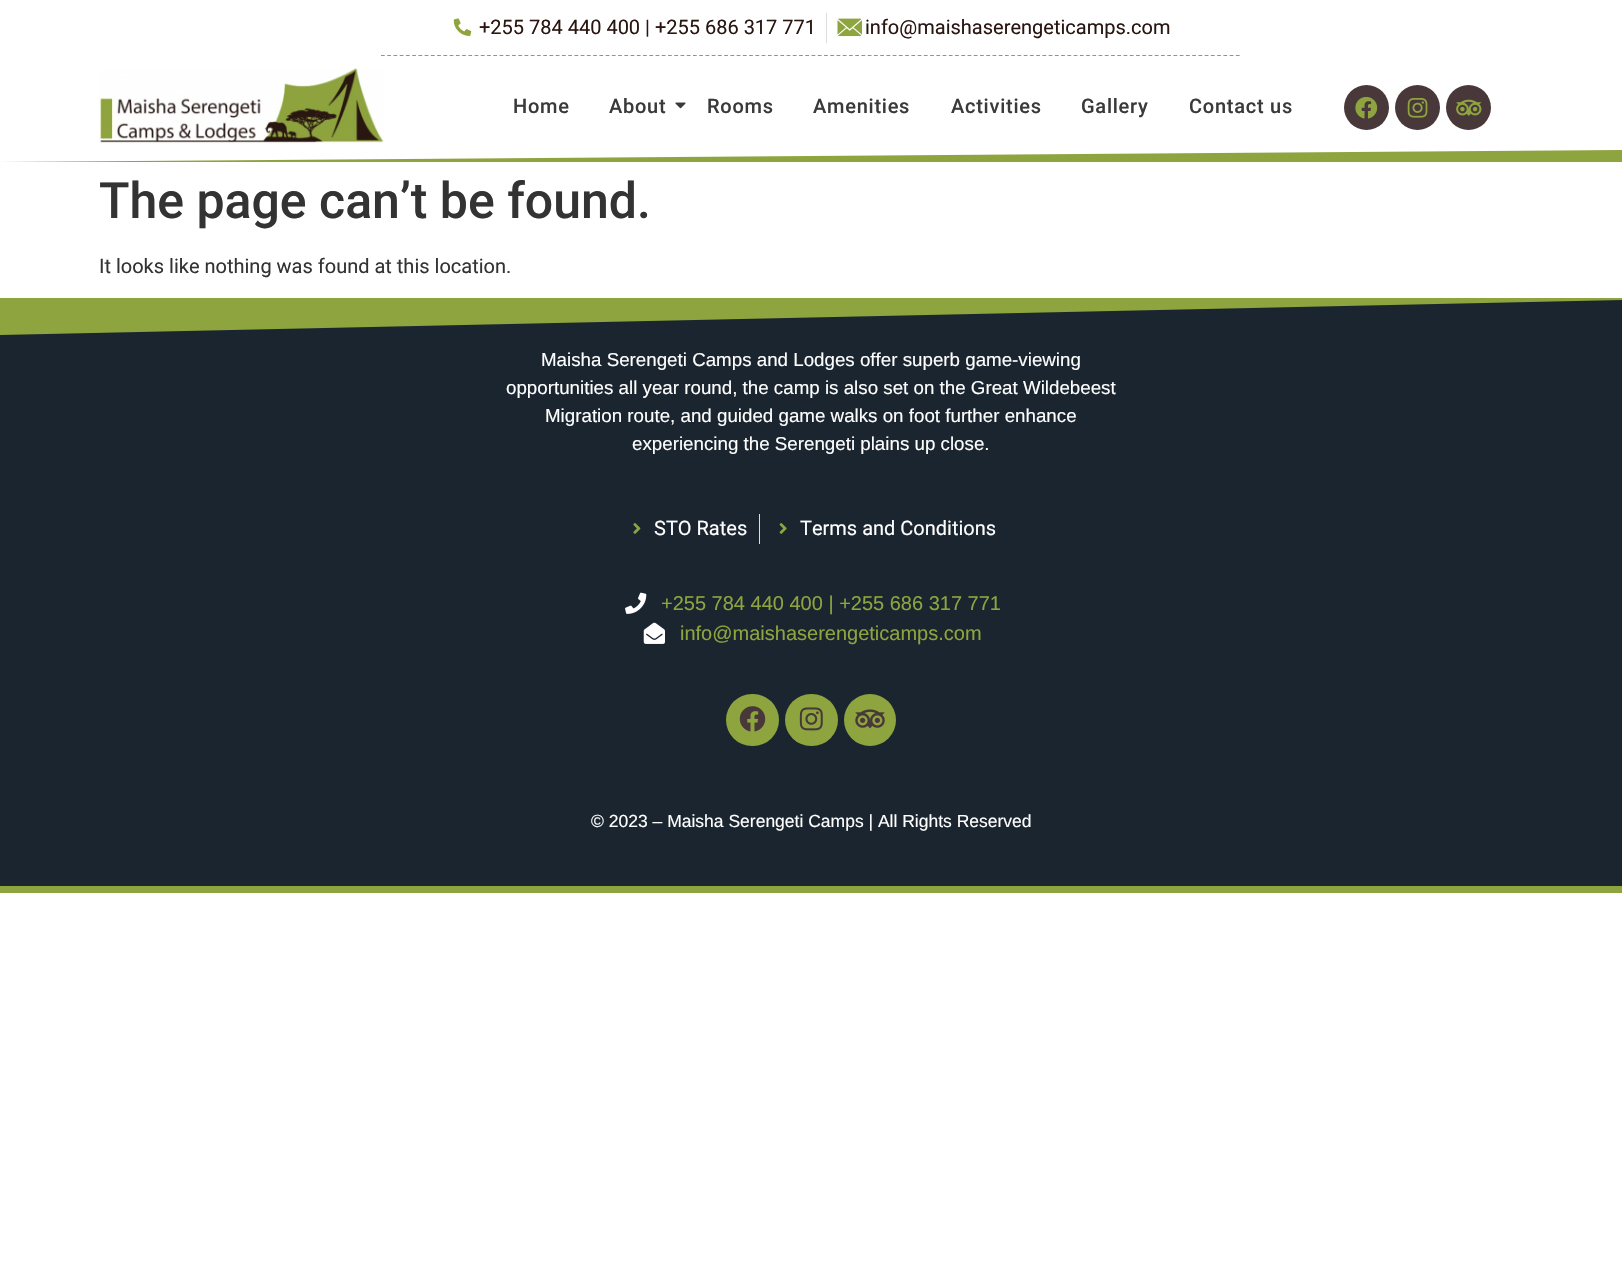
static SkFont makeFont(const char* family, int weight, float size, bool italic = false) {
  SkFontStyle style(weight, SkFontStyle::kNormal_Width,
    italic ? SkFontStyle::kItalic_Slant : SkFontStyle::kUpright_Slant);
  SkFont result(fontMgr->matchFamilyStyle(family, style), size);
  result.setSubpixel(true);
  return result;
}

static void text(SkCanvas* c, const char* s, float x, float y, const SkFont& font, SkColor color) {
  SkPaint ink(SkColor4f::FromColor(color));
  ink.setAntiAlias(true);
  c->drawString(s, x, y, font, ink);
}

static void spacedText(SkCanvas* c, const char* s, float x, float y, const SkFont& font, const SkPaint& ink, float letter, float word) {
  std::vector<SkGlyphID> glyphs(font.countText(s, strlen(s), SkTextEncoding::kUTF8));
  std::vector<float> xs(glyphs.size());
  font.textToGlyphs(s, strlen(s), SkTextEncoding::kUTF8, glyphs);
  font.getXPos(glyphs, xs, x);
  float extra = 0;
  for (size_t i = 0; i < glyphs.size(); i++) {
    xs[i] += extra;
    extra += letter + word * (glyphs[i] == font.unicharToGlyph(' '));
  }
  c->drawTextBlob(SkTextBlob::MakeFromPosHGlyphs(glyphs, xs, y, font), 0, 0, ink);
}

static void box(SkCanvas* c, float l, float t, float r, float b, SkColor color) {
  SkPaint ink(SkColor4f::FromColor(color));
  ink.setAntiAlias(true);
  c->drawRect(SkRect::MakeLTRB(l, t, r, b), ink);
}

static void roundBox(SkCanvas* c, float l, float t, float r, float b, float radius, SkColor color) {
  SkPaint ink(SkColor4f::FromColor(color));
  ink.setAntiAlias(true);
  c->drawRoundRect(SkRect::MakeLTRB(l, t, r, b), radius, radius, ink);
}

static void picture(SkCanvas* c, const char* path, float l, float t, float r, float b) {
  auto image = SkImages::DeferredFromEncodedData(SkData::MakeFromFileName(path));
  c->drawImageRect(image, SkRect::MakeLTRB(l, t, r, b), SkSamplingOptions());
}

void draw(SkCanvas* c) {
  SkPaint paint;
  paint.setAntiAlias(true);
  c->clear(0xffffffff);
  paint.setStyle(SkPaint::kStroke_Style);
  paint.setStrokeWidth(1.2f);
  paint.setColor(0xff8ea43e);
  paint.setPathEffect(SkDashPathEffect::Make({{3.75f, 2.49f}}, 0));
  c->drawPath(SkPathBuilder().moveTo(381, 55.5f).lineTo(1240, 55.5f).detach(), paint);
  paint.setPathEffect(nullptr);
  picture(c, "img_01.png", 453, 18, 472, 36);
  SkFont face1 = makeFont("Roboto", 400, 20);
  text(c, "+255 784 440 400 | +255 686 317 771", 479, 34, face1, 0xff2a1610);
  box(c, 826, 13, 827, 43, 0xffdddddd);
  picture(c, "img_02.png", 837, 18, 862, 37);
  text(c, "info@maishaserengeticamps.com", 865, 34, face1, 0xff2a1610);
  box(c, 381, 56, 1240, 57, 0xffffffff);
  picture(c, "img_03.png", 99, 68, 384, 145);
  SkFont face2 = makeFont("Roboto", 500, 20);
  paint.setStyle(SkPaint::kFill_Style);
  paint.setColor(0xff3a3a3a);
  spacedText(c, "Home", 513, 113, face2, paint, 0.75f, 0);
  spacedText(c, "About", 609, 113, face2, paint, 0.75f, 0);
  picture(c, "img_04.png", 675, 102, 686, 109);
  spacedText(c, "Rooms", 707, 113, face2, paint, 0.75f, 0);
  spacedText(c, "Amenities", 813, 113, face2, paint, 0.75f, 0);
  spacedText(c, "Activities", 951, 113, face2, paint, 0.75f, 0);
  spacedText(c, "Gallery", 1081, 113, face2, paint, 0.75f, 0);
  spacedText(c, "Contact us", 1189, 113, face2, paint, 0.75f, 0);
  paint.setColor(0xff483839);
  c->drawCircle(1366.5f, 107.5f, 22.5f, paint);
  picture(c, "img_05.png", 1355, 96, 1378, 119);
  c->drawCircle(1417.5f, 107.5f, 22.5f, paint);
  picture(c, "img_06.png", 1407, 98, 1428, 118);
  c->drawCircle(1468.5f, 107.5f, 22.5f, paint);
  picture(c, "img_07.png", 1456, 99, 1482, 116);
  paint.setColor(0xff8ea43e);
  c->drawPath(SkPathBuilder().moveTo(-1, 162).lineTo(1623, 162).lineTo(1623, 150).close().detach(), paint);
  SkFont face3 = makeFont("Roboto", 500, 50);
  text(c, "The page can’t be found.", 99, 218, face3, 0xff333333);
  text(c, "It looks like nothing was found at this location.", 99, 273, face1, 0xff333333);
  box(c, 0, 300, 1622, 886, 0xff1b252f);
  box(c, 0, 886, 1622, 893, 0xff8ea43e);
  c->drawPath(SkPathBuilder().moveTo(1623, 300).lineTo(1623, 298).lineTo(-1, 298).lineTo(-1, 335).close().detach(), paint);
  SkFont face4 = makeFont("Liberation Sans", 400, 18.75f);
  text(c, "Maisha Serengeti Camps and Lodges offer superb game-viewing", 541, 366, face4, 0xffffffff);
  text(c, "opportunities all year round, the camp is also set on the Great Wildebeest", 506, 394, face4, 0xffffffff);
  text(c, "Migration route, and guided game walks on foot further enhance", 545, 422, face4, 0xffffffff);
  text(c, "experiencing the Serengeti plains up close.", 632, 450, face4, 0xffffffff);
  picture(c, "img_08.png", 633, 523, 641, 534);
  text(c, "STO Rates", 654, 535, face1, 0xffffffff);
  box(c, 759, 514, 760, 544, 0xffdddddd);
  picture(c, "img_09.png", 779, 523, 787, 534);
  text(c, "Terms and Conditions", 800, 535, face1, 0xffffffff);
  picture(c, "img_10.png", 625, 592, 647, 614);
  SkFont face5 = makeFont("Liberation Sans", 400, 20);
  text(c, "+255 784 440 400 | +255 686 317 771", 661, 610, face5, 0xff8ea43e);
  picture(c, "img_11.png", 643, 622, 665, 644);
  text(c, "info@maishaserengeticamps.com", 680, 640, face5, 0xff8ea43e);
  roundBox(c, 726, 694, 779, 746, 26, 0xff8ea43e);
  picture(c, "img_12.png", 739, 706, 766, 732);
  roundBox(c, 785, 694, 838, 746, 26, 0xff8ea43e);
  picture(c, "img_13.png", 799, 707, 823, 731);
  c->drawCircle(870, 720, 26, paint);
  picture(c, "img_14.png", 855, 709, 885, 729);
  SkFont face6 = makeFont("Liberation Sans", 400, 17.5f);
  text(c, "© 2023 – Maisha Serengeti Camps | All Rights Reserved", 591, 827, face6, 0xffffffff);
}
